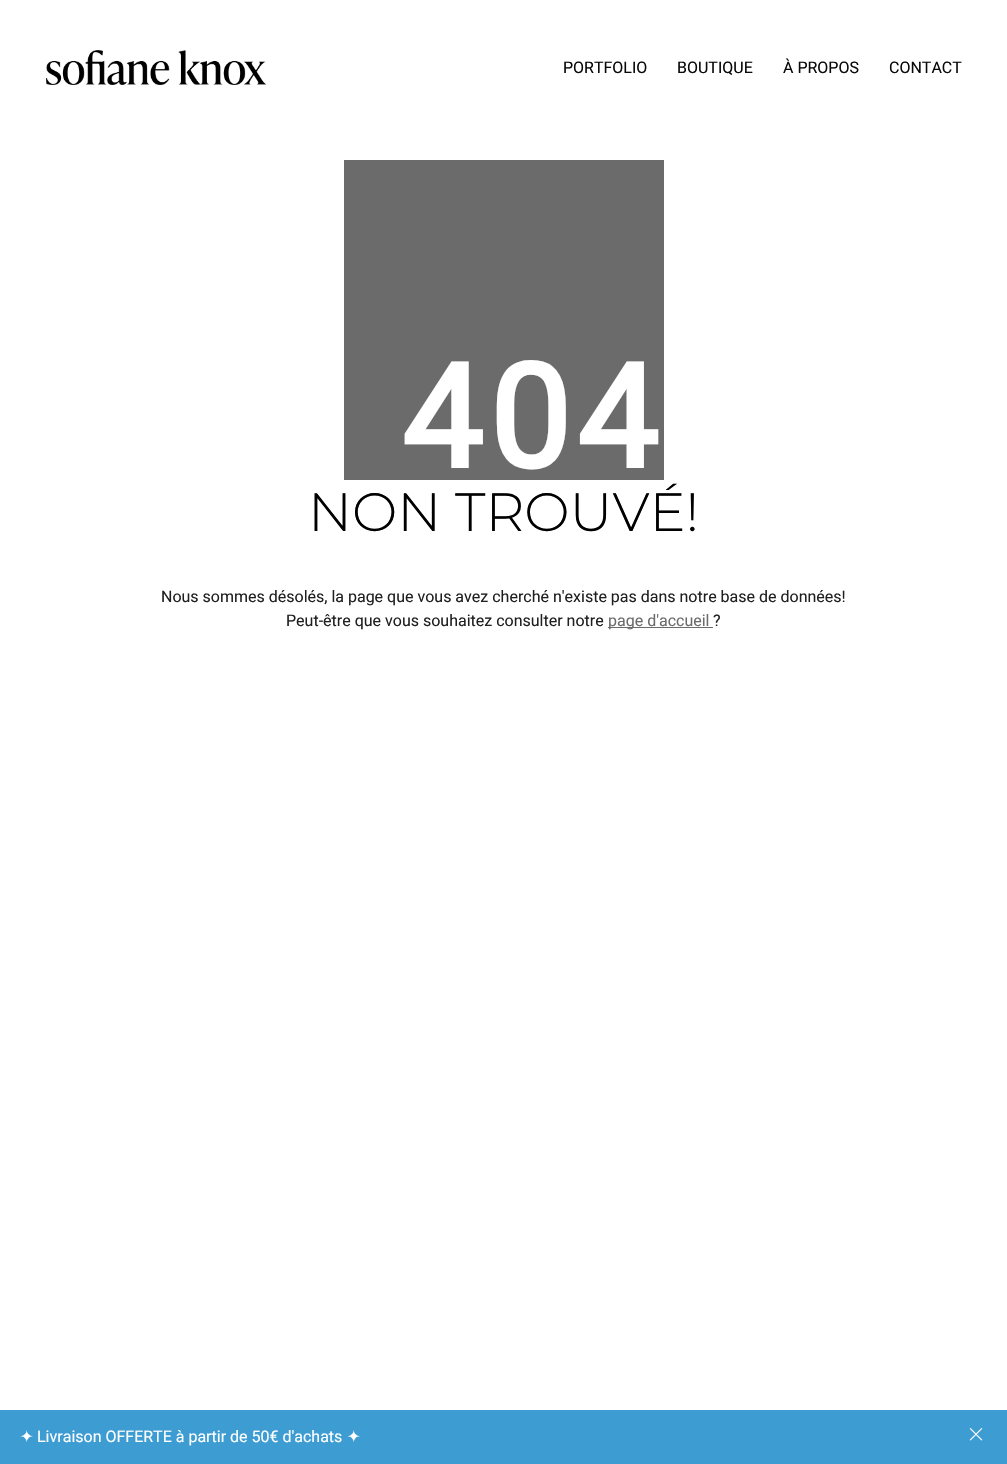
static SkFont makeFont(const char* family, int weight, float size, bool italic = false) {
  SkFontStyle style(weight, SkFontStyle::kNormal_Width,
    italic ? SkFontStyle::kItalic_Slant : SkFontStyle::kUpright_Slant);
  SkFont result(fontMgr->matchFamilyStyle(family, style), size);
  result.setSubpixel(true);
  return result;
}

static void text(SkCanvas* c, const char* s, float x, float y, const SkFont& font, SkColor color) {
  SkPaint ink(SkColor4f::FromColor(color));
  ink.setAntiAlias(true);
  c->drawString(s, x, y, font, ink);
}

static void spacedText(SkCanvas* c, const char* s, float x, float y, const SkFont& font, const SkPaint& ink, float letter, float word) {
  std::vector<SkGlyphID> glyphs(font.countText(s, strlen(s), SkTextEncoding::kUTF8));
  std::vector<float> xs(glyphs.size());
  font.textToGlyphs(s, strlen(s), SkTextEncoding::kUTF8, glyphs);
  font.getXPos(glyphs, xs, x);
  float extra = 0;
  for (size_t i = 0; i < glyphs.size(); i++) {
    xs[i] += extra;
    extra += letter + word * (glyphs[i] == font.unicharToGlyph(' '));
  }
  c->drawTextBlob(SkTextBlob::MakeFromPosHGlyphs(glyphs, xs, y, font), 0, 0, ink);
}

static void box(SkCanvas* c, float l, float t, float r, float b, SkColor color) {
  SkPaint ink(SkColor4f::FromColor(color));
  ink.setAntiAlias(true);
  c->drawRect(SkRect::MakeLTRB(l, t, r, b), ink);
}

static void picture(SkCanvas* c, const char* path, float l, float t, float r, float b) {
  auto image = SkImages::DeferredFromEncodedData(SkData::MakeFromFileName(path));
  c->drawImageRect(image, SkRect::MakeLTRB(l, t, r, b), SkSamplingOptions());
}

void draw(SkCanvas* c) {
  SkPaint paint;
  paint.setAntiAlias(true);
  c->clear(0xffffffff);
  picture(c, "img_01.png", 46, 50, 266, 85);
  SkFont face1 = makeFont("Roboto", 400, 16);
  text(c, "PORTFOLIO", 563, 73, face1, 0xff0a0909);
  text(c, "BOUTIQUE", 677, 73, face1, 0xff0a0909);
  text(c, "À PROPOS", 783, 73, face1, 0xff0a0909);
  text(c, "CONTACT", 889, 73, face1, 0xff0a0909);
  box(c, 344, 160, 664, 480, 0xff6b6b6b);
  SkFont face2 = makeFont("Roboto", 700, 144);
  paint.setColor(0xffffffff);
  spacedText(c, "4 0 4", 401, 468, face2, paint, -14.5f, 0);
  SkFont face3 = makeFont("Montserrat", 300, 54);
  text(c, "NON TROUVÉ!", 308, 531, face3, 0xff000000);
  text(c, "Nous sommes désolés, la page que vous avez cherché n'existe pas dans notre base de données!", 161, 602, face1, 0xff202020);
  text(c, "Peut-être que vous souhaitez consulter notre", 286, 626, face1, 0xff202020);
  box(c, 608, 627, 713, 628, 0xff6b6b6b);
  text(c, "page d'accueil", 608, 626, face1, 0xff6b6b6b);
  text(c, "?", 713, 626, face1, 0xff202020);
  box(c, 0, 1410, 1007, 1464, 0xff3d9cd2);
  SkFont face4 = makeFont("DejaVu Sans", 400, 16);
  text(c, "✦", 20, 1442, face4, 0xffffffff);
  text(c, "Livraison OFFERTE à partir de 50€ d'achats", 37, 1442, face1, 0xffffffff);
  text(c, "✦", 347, 1442, face4, 0xffffffff);
  picture(c, "img_02.png", 969, 1428, 983, 1441);
}
